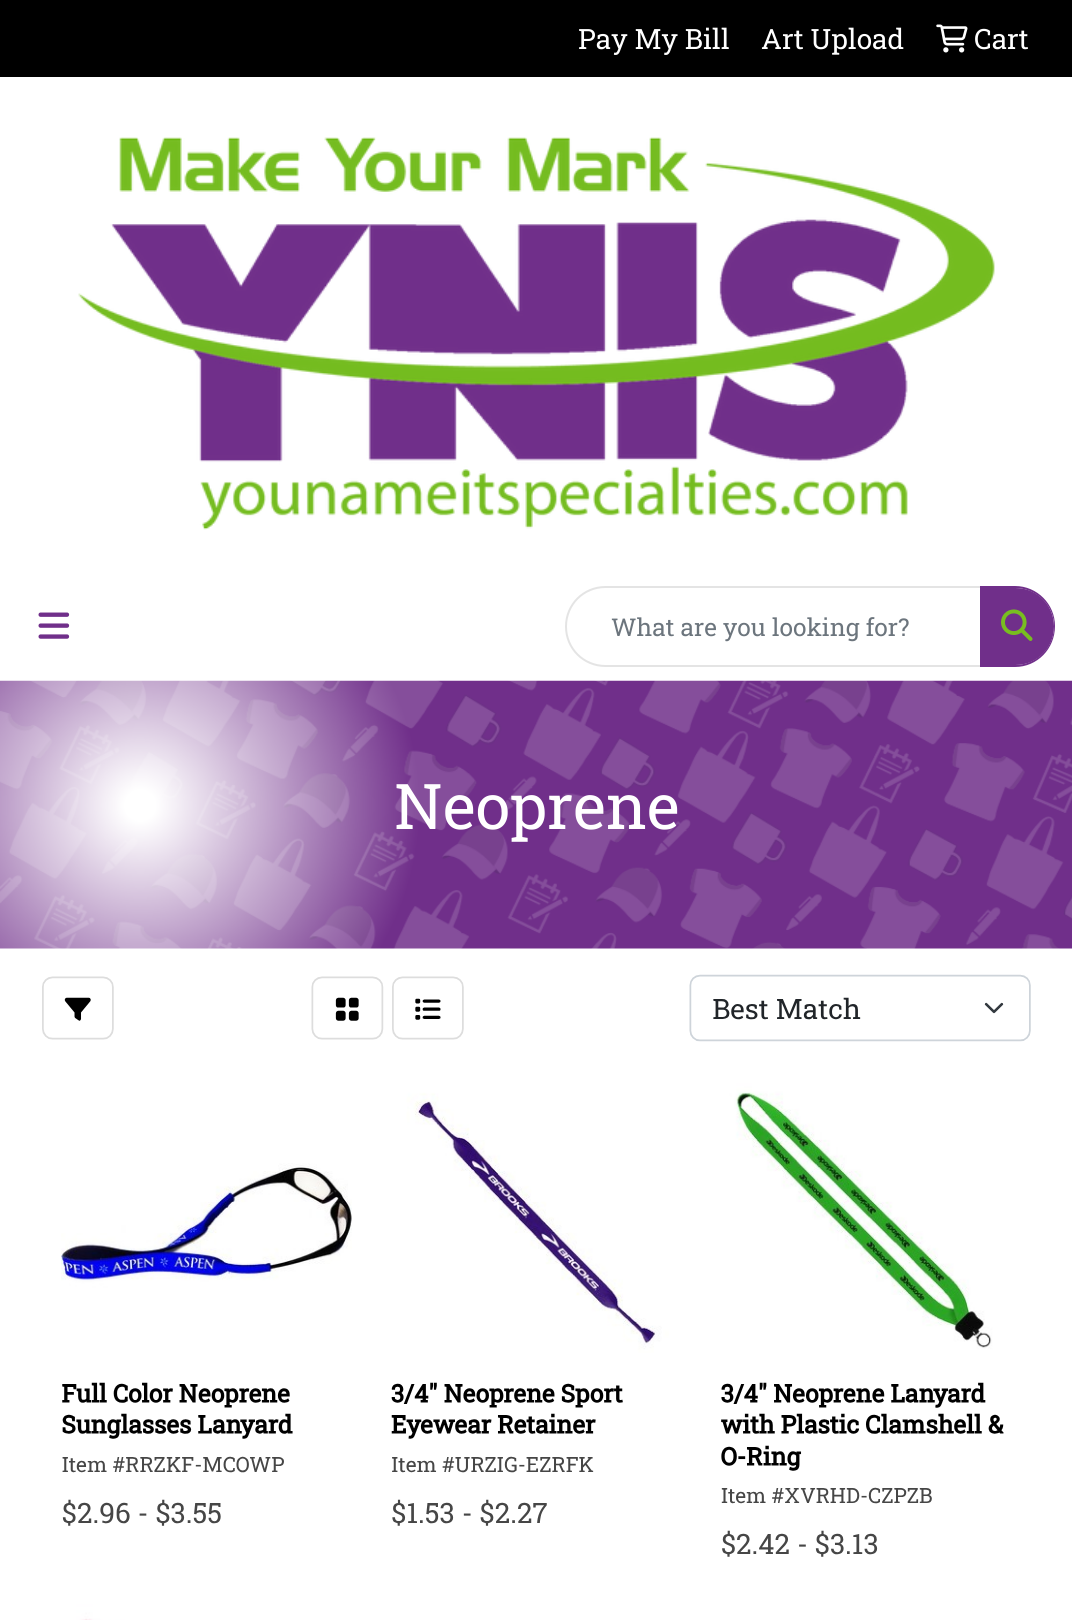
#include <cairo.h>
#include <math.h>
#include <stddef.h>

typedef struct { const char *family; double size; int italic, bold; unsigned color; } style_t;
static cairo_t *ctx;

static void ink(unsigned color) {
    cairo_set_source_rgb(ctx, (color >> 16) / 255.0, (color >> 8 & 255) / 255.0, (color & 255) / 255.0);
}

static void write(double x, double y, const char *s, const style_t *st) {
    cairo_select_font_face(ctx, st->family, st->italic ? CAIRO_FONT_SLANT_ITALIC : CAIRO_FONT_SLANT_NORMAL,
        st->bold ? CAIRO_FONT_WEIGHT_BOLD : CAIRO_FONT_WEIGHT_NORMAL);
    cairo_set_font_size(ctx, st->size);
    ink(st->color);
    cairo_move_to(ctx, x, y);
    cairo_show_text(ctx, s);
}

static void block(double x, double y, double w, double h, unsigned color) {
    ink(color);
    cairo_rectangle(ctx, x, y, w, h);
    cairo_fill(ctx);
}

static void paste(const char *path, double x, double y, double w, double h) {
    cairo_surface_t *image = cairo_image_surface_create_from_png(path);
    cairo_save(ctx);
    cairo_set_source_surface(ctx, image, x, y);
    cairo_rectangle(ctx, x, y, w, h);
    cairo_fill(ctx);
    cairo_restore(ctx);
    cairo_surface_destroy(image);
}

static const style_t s1 = {"Roboto Slab", 28, 0, 0, 0xffffff};
static const style_t s2 = {"Roboto Slab", 24.5, 0, 0, 0x6c757d};
static const style_t s3 = {"Roboto Slab", 63, 0, 0, 0xffffff};

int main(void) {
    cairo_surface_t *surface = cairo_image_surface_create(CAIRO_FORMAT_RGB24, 1072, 1620);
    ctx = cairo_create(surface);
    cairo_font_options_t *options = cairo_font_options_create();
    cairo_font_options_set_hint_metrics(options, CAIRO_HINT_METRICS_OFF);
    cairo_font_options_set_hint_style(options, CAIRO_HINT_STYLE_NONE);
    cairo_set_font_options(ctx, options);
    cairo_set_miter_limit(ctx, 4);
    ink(0xffffff);
    cairo_paint(ctx);
    block(0, 0, 1072, 77, 0x000000);
    write(578, 49, "Pay My Bill", &s1);
    write(761, 49, "Art Upload", &s1);
    paste("pic1.png", 936, 24, 32, 29);
    write(974, 49, "Cart", &s1);
    paste("pic2.png", 78, 137, 917, 393);
    paste("pic3.png", 38, 612, 32, 27);
    cairo_new_path(ctx);
    cairo_move_to(ctx, 605.5, 587);
    cairo_line_to(ctx, 981, 587);
    cairo_line_to(ctx, 981, 666);
    cairo_line_to(ctx, 605.5, 666);
    cairo_curve_to(ctx, 583.5, 666, 566, 648.5, 566, 626.5);
    cairo_curve_to(ctx, 566, 604.5, 583.5, 587, 605.5, 587);
    cairo_close_path(ctx);
    ink(0xe4e4e4);
    cairo_stroke(ctx);
    write(611, 636, "What are you looking for?", &s2);
    ink(0x702f8a);
    cairo_new_path(ctx);
    cairo_move_to(ctx, 980, 588);
    cairo_line_to(ctx, 1015.5, 588);
    cairo_curve_to(ctx, 1037, 588, 1054, 605, 1054, 626.5);
    cairo_curve_to(ctx, 1054, 648, 1037, 665, 1015.5, 665);
    cairo_line_to(ctx, 980, 665);
    cairo_close_path(ctx);
    cairo_fill(ctx);
    cairo_set_fill_rule(ctx, CAIRO_FILL_RULE_EVEN_ODD);
    cairo_new_path(ctx);
    cairo_move_to(ctx, 980, 586);
    cairo_line_to(ctx, 1015, 586);
    cairo_curve_to(ctx, 1037, 586, 1055, 604, 1055, 626);
    cairo_curve_to(ctx, 1055, 649, 1037, 667, 1015, 667);
    cairo_line_to(ctx, 980, 667);
    cairo_close_path(ctx);
    cairo_move_to(ctx, 980, 588);
    cairo_line_to(ctx, 1015, 588);
    cairo_curve_to(ctx, 1036, 588, 1054, 605, 1054, 626);
    cairo_curve_to(ctx, 1054, 648, 1036, 665, 1015, 665);
    cairo_line_to(ctx, 980, 665);
    cairo_close_path(ctx);
    cairo_fill(ctx);
    paste("pic4.png", 1001, 609, 32, 32);
    paste("pic5.png", 0, 680, 1072, 269);
    write(394, 829, "Neoprene", &s3);
    paste("pic6.png", 42, 974, 989, 646);
    cairo_surface_write_to_png(surface, "screenshot.png");
    cairo_font_options_destroy(options);
    cairo_destroy(ctx);
    cairo_surface_destroy(surface);
    return 0;
}
